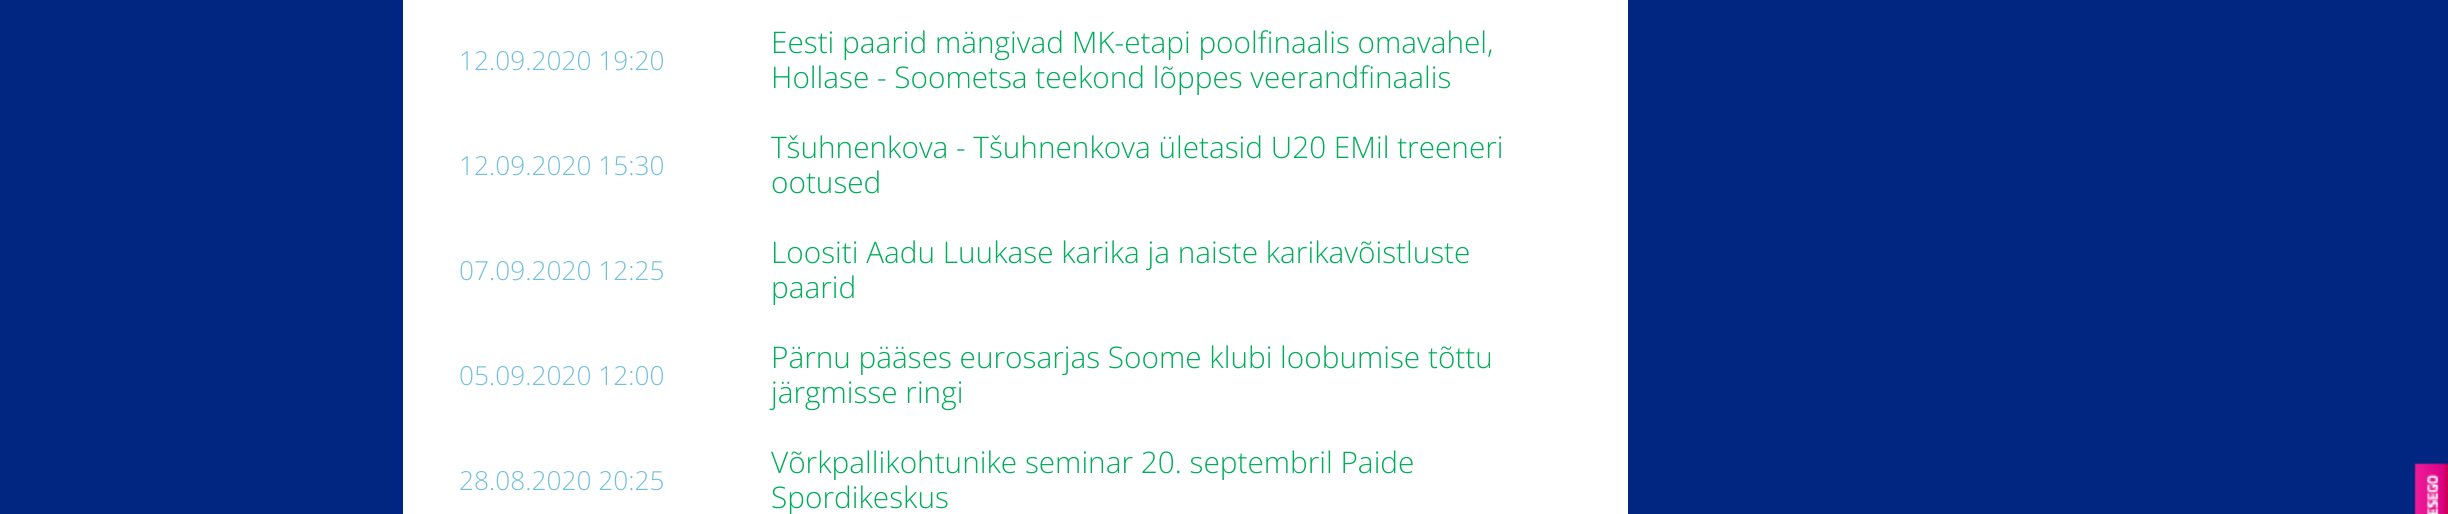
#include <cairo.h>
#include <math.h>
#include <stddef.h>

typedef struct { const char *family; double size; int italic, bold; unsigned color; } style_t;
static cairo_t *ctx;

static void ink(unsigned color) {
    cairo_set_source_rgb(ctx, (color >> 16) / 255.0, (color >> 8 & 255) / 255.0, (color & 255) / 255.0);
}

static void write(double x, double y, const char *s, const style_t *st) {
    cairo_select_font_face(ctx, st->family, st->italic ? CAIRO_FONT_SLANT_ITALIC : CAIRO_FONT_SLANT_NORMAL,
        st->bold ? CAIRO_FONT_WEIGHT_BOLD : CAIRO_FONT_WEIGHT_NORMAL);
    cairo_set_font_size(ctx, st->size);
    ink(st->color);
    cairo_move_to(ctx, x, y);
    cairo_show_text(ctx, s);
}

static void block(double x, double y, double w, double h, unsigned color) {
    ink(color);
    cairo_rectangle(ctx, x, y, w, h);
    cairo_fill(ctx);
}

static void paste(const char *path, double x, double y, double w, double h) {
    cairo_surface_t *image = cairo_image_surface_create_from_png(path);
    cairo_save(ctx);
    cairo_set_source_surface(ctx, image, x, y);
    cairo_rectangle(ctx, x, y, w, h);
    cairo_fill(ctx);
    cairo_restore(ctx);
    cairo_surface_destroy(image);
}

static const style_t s1 = {"Open Sans Light", 26.25, 0, 0, 0x72c0db};
static const style_t s2 = {"Open Sans Light", 29.75, 0, 0, 0x00ad5a};

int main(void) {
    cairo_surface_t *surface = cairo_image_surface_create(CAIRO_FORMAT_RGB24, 2448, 514);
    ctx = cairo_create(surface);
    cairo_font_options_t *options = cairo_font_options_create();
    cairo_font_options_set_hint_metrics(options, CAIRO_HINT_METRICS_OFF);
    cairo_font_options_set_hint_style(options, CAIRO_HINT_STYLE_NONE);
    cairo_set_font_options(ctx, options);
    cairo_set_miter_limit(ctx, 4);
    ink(0x002682);
    cairo_paint(ctx);
    block(403, 0, 1225, 514, 0xffffff);
    write(459, 70, "12.09.2020 19:20", &s1);
    write(771, 53, "Eesti paarid mängivad MK-etapi poolfinaalis omavahel,", &s2);
    write(771, 88, "Hollase - Soometsa teekond lõppes veerandfinaalis", &s2);
    write(459, 175, "12.09.2020 15:30", &s1);
    write(771, 158, "Tšuhnenkova - Tšuhnenkova ületasid U20 EMil treeneri", &s2);
    write(771, 193, "ootused", &s2);
    write(459, 280, "07.09.2020 12:25", &s1);
    write(771, 263, "Loositi Aadu Luukase karika ja naiste karikavõistluste", &s2);
    write(771, 298, "paarid", &s2);
    write(459, 385, "05.09.2020 12:00", &s1);
    write(771, 368, "Pärnu pääses eurosarjas Soome klubi loobumise tõttu", &s2);
    write(771, 403, "järgmisse ringi", &s2);
    write(459, 490, "28.08.2020 20:25", &s1);
    write(771, 473, "Võrkpallikohtunike seminar 20. septembril Paide", &s2);
    write(771, 508, "Spordikeskus", &s2);
    paste("pic1.png", 2413, 463, 35, 51);
    cairo_surface_write_to_png(surface, "screenshot.png");
    cairo_font_options_destroy(options);
    cairo_destroy(ctx);
    cairo_surface_destroy(surface);
    return 0;
}
